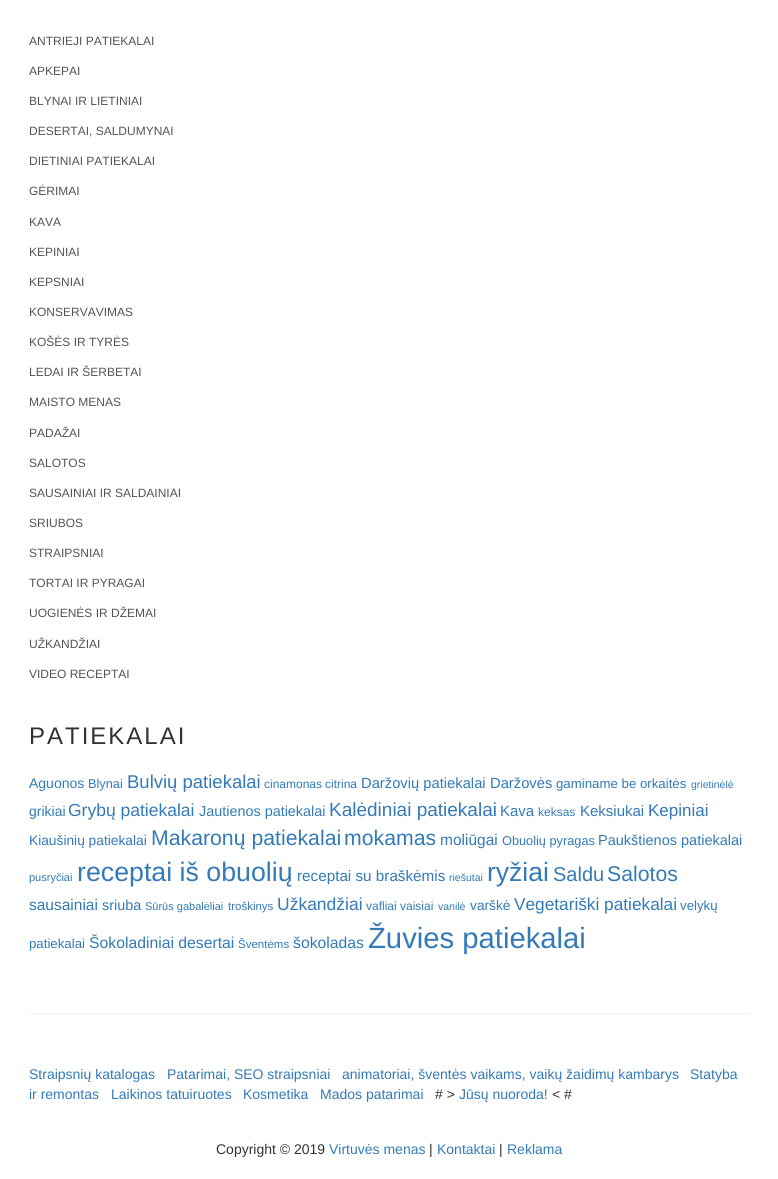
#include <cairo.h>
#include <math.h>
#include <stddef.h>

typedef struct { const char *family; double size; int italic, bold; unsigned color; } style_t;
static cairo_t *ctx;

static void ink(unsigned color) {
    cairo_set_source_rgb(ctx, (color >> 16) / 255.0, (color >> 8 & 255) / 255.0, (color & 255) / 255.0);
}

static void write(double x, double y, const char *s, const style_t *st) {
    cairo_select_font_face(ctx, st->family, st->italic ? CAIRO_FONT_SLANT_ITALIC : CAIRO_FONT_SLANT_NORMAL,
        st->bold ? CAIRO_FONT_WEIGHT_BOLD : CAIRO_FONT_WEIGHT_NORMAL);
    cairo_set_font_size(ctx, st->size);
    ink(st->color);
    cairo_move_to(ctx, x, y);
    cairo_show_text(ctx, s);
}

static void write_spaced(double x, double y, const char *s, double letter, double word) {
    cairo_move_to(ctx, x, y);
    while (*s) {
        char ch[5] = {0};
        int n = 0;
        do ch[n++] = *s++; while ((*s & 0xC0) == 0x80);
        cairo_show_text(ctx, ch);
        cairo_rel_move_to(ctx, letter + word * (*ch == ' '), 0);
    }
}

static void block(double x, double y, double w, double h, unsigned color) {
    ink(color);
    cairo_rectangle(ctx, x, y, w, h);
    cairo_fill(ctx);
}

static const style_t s1 = {"Liberation Sans", 12, 0, 0, 0x545454};
static const style_t s2 = {"Liberation Sans", 14, 0, 0, 0x337ab7};
static const style_t s3 = {"Liberation Sans", 12.75, 0, 0, 0x337ab7};
static const style_t s4 = {"Liberation Sans", 18.5, 0, 0, 0x337ab7};
static const style_t s5 = {"Liberation Sans", 12, 0, 0, 0x337ab7};
static const style_t s6 = {"Liberation Sans", 14.75, 0, 0, 0x337ab7};
static const style_t s7 = {"Liberation Sans", 13.25, 0, 0, 0x337ab7};
static const style_t s8 = {"Liberation Sans", 10.5, 0, 0, 0x337ab7};
static const style_t s9 = {"Liberation Sans", 17.5, 0, 0, 0x337ab7};
static const style_t s10 = {"Liberation Sans", 14.4, 0, 0, 0x337ab7};
static const style_t s11 = {"Liberation Sans", 19, 0, 0, 0x337ab7};
static const style_t s12 = {"Liberation Sans", 15, 0, 0, 0x337ab7};
static const style_t s13 = {"Liberation Sans", 17, 0, 0, 0x337ab7};
static const style_t s14 = {"Liberation Sans", 13.75, 0, 0, 0x337ab7};
static const style_t s15 = {"Liberation Sans", 21.25, 0, 0, 0x337ab7};
static const style_t s16 = {"Liberation Sans", 15.5, 0, 0, 0x337ab7};
static const style_t s17 = {"Liberation Sans", 14.5, 0, 0, 0x337ab7};
static const style_t s18 = {"Liberation Sans", 11, 0, 0, 0x337ab7};
static const style_t s19 = {"Liberation Sans", 26.75, 0, 0, 0x337ab7};
static const style_t s20 = {"Liberation Sans", 15.25, 0, 0, 0x337ab7};
static const style_t s21 = {"Liberation Sans", 26.5, 0, 0, 0x337ab7};
static const style_t s22 = {"Liberation Sans", 20, 0, 0, 0x337ab7};
static const style_t s23 = {"Liberation Sans", 11.5, 0, 0, 0x337ab7};
static const style_t s24 = {"Liberation Sans", 17.25, 0, 0, 0x337ab7};
static const style_t s25 = {"Liberation Sans", 15.75, 0, 0, 0x337ab7};
static const style_t s26 = {"Liberation Sans", 29.25, 0, 0, 0x337ab7};
static const style_t s27 = {"Liberation Sans", 14, 0, 0, 0x333333};

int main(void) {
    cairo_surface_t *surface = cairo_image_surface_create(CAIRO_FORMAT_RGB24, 778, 1179);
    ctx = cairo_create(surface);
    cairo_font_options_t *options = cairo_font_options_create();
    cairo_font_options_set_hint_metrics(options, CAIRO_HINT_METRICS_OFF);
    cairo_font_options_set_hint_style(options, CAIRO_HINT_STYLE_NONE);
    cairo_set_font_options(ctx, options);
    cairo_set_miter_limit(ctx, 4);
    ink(0xffffff);
    cairo_paint(ctx);
    write(29, 45, "ANTRIEJI PATIEKALAI", &s1);
    write(29, 75, "APKEPAI", &s1);
    write(29, 105, "BLYNAI IR LIETINIAI", &s1);
    write(29, 135, "DESERTAI, SALDUMYNAI", &s1);
    write(29, 165, "DIETINIAI PATIEKALAI", &s1);
    write(29, 195, "GĖRIMAI", &s1);
    write(29, 226, "KAVA", &s1);
    write(29, 256, "KEPINIAI", &s1);
    write(29, 286, "KEPSNIAI", &s1);
    write(29, 316, "KONSERVAVIMAS", &s1);
    write(29, 346, "KOŠĖS IR TYRĖS", &s1);
    write(29, 376, "LEDAI IR ŠERBETAI", &s1);
    write(29, 406, "MAISTO MENAS", &s1);
    write(29, 437, "PADAŽAI", &s1);
    write(29, 467, "SALOTOS", &s1);
    write(29, 497, "SAUSAINIAI IR SALDAINIAI", &s1);
    write(29, 527, "SRIUBOS", &s1);
    write(29, 557, "STRAIPSNIAI", &s1);
    write(29, 587, "TORTAI IR PYRAGAI", &s1);
    write(29, 617, "UOGIENĖS IR DŽEMAI", &s1);
    write(29, 648, "UŽKANDŽIAI", &s1);
    write(29, 678, "VIDEO RECEPTAI", &s1);
    cairo_set_font_size(ctx, 24);
    ink(0x333333);
    write_spaced(29, 744, "PATIEKALAI", 2, 0);
    write(29, 788, "Aguonos", &s2);
    write(88, 788, "Blynai", &s3);
    write(127, 788, "Bulvių patiekalai", &s4);
    write(264, 788, "cinamonas", &s5);
    write(325, 788, "citrina", &s5);
    write(361, 788, "Daržovių patiekalai", &s6);
    write(490, 788, "Daržovės", &s6);
    write(556, 788, "gaminame be orkaitės", &s7);
    write(691, 788, "grietinėlė", &s8);
    write(29, 816, "grikiai", &s2);
    write(68, 816, "Grybų patiekalai", &s9);
    write(199, 816, "Jautienos patiekalai", &s10);
    write(329, 816, "Kalėdiniai patiekalai", &s11);
    write(500, 816, "Kava", &s12);
    write(538, 816, "keksas", &s5);
    write(580, 816, "Keksiukai", &s12);
    write(648, 816, "Kepiniai", &s13);
    write(29, 845, "Kiaušinių patiekalai", &s14);
    write(151, 845, "Makaronų patiekalai", &s15);
    write(344, 845, "mokamas", &s15);
    write(440, 845, "moliūgai", &s16);
    write(502, 845, "Obuolių pyragas", &s3);
    write(598, 845, "Paukštienos patiekalai", &s17);
    write(29, 881, "pusryčiai", &s18);
    write(77, 881, "receptai iš obuolių", &s19);
    write(297, 881, "receptai su braškėmis", &s20);
    write(449, 881, "riešutai", &s8);
    write(487, 881, "ryžiai", &s21);
    write(553, 881, "Saldu", &s22);
    write(607, 881, "Salotos", &s15);
    write(29, 910, "sausainiai", &s16);
    write(102, 910, "sriuba", &s10);
    write(145, 910, "Sūrūs gabalėliai", &s18);
    write(228, 910, "troškinys", &s23);
    write(277, 910, "Užkandžiai", &s9);
    write(366, 910, "vafliai", &s5);
    write(400, 910, "vaisiai", &s5);
    write(438, 910, "vanilė", &s8);
    write(470, 910, "varškė", &s14);
    write(514, 910, "Vegetariški patiekalai", &s24);
    write(680, 910, "velykų", &s7);
    write(29, 948, "patiekalai", &s7);
    write(89, 948, "Šokoladiniai desertai", &s25);
    write(238, 948, "Šventėms", &s23);
    write(293, 948, "šokoladas", &s25);
    write(368, 948, "Žuvies patiekalai", &s26);
    block(29, 1013, 720, 1, 0xeeeeee);
    write(29, 1079, "Straipsnių katalogas", &s2);
    write(167, 1079, "Patarimai, SEO straipsniai", &s2);
    write(342, 1079, "animatoriai, šventės vaikams, vaikų žaidimų kambarys", &s2);
    write(690, 1079, "Statyba", &s2);
    write(29, 1099, "ir remontas", &s2);
    write(111, 1099, "Laikinos tatuiruotes", &s2);
    write(243, 1099, "Kosmetika", &s2);
    write(320, 1099, "Mados patarimai", &s2);
    write(435, 1099, "# >", &s27);
    write(459, 1099, "Jūsų nuoroda!", &s2);
    write(552, 1099, "< #", &s27);
    write(216, 1154, "Copyright © 2019", &s27);
    write(329, 1154, "Virtuvės menas", &s2);
    write(429, 1154, "|", &s27);
    write(437, 1154, "Kontaktai", &s2);
    write(499, 1154, "|", &s27);
    write(507, 1154, "Reklama", &s2);
    cairo_surface_write_to_png(surface, "screenshot.png");
    cairo_font_options_destroy(options);
    cairo_destroy(ctx);
    cairo_surface_destroy(surface);
    return 0;
}
